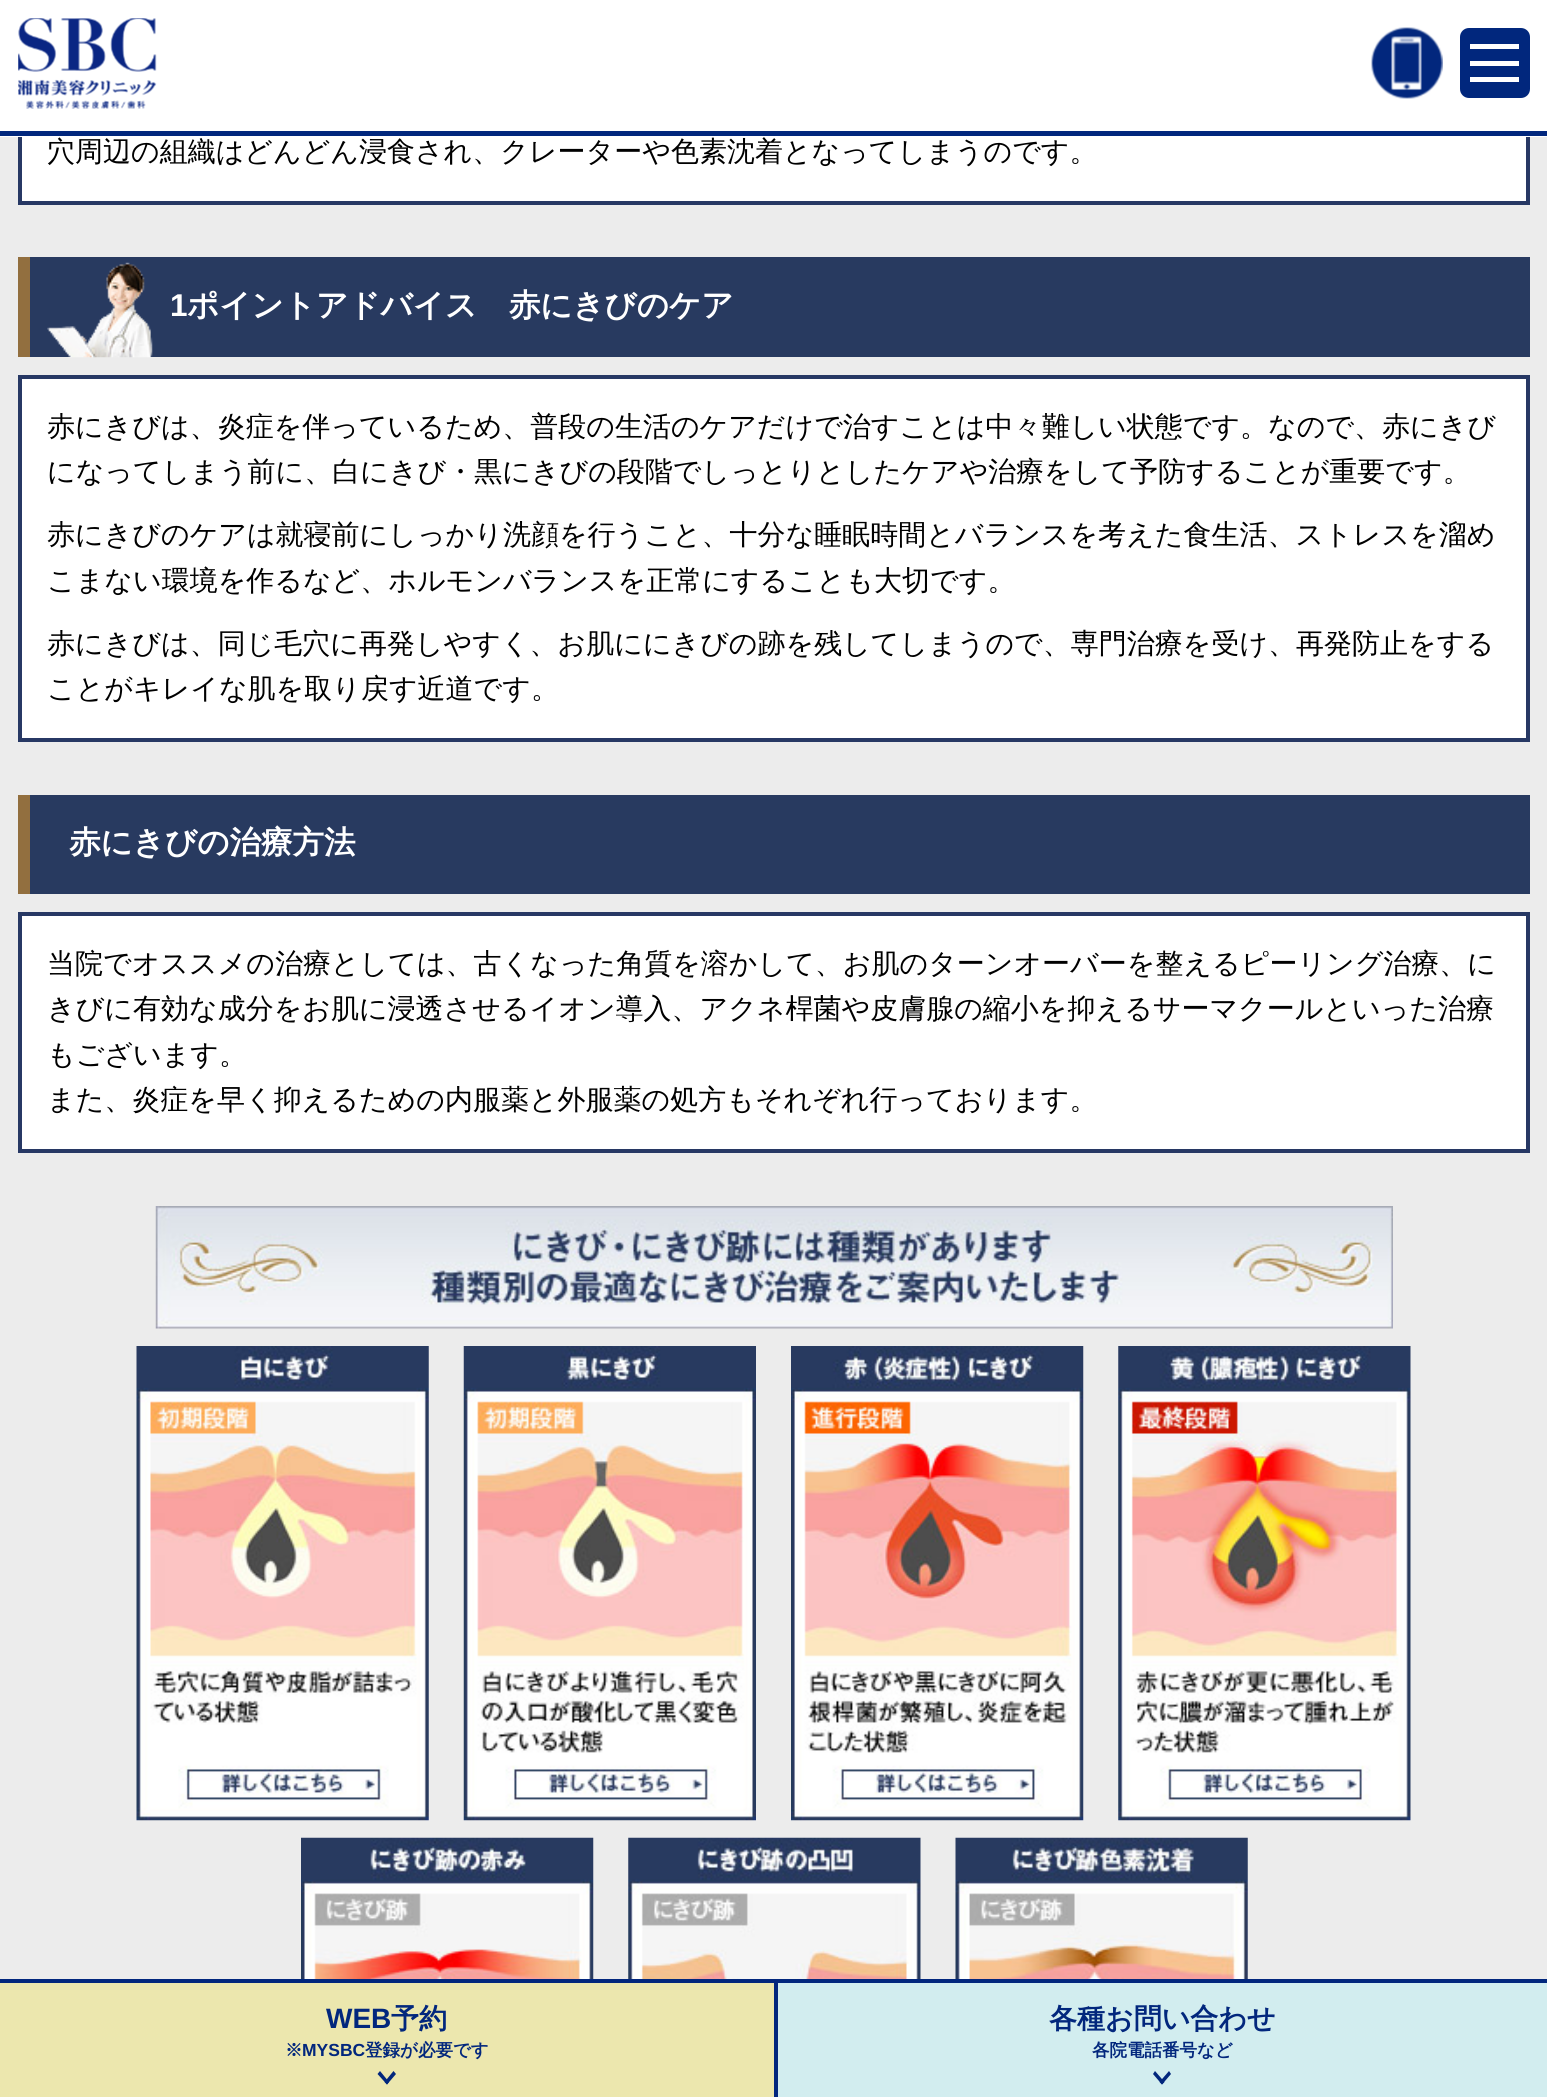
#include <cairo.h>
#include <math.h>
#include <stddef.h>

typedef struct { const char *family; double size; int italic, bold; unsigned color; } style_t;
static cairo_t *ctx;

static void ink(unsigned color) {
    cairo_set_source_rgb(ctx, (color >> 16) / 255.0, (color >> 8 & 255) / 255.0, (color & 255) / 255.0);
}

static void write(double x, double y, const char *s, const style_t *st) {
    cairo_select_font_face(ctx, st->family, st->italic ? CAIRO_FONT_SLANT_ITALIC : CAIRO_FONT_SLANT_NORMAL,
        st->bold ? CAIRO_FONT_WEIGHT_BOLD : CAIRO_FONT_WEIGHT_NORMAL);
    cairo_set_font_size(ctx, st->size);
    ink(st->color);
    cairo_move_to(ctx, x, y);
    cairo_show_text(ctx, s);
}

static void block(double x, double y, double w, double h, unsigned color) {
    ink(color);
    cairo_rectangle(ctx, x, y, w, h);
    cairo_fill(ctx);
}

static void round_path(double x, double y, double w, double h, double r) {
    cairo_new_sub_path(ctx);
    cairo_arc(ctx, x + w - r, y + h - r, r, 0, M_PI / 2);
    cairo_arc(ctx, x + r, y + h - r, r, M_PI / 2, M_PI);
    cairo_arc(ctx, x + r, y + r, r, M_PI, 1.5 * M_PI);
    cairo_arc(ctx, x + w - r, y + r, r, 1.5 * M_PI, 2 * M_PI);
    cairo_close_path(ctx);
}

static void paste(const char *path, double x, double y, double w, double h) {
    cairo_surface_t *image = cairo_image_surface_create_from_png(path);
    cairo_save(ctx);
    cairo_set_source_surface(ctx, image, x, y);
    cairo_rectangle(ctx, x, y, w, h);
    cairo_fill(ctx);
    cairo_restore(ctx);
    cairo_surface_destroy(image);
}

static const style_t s1 = {"WenQuanYi Zen Hei Medium", 28, 0, 0, 0x000000};
static const style_t s2 = {"Liberation Sans", 31.5, 0, 1, 0xffffff};
static const style_t s3 = {"WenQuanYi Zen Hei", 31.5, 0, 1, 0xffffff};
static const style_t s4 = {"Liberation Sans", 28, 0, 1, 0x02277d};
static const style_t s5 = {"WenQuanYi Zen Hei", 28, 0, 1, 0x02277d};
static const style_t s6 = {"WenQuanYi Zen Hei", 17.5, 0, 1, 0x02277d};
static const style_t s7 = {"Liberation Sans", 17.5, 0, 1, 0x02277d};

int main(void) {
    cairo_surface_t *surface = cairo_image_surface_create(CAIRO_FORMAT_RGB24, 1547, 2097);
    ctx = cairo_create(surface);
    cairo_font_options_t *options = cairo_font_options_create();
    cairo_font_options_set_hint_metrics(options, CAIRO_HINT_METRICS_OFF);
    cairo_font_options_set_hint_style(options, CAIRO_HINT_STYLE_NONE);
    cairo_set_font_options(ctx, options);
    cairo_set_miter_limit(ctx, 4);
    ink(0xececec);
    cairo_paint(ctx);
    block(22, 137, 1504, 64, 0xffffff);
    cairo_rectangle(ctx, 20, -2, 1508, 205);
    ink(0x273864);
    cairo_set_line_width(ctx, 4);
    cairo_stroke(ctx);
    write(47, 161, "穴周辺の組織はどんどん浸食され、クレーターや色素沈着となってしまうのです。", &s1);
    block(30, 257, 1500, 100, 0x283a60);
    block(18, 257, 12, 100, 0x926f3f);
    paste("pic1.png", 47, 262, 106, 96);
    write(170, 316, "1", &s2);
    write(187, 316, "ポイントアドバイス　赤にきびのケア", &s3);
    cairo_rectangle(ctx, 20, 377, 1508, 363);
    cairo_fill_preserve(ctx);
    ink(0x273864);
    cairo_stroke(ctx);
    write(47, 436, "赤にきびは、炎症を伴っているため、普段の生活のケアだけで治すことは中々難しい状態です。なので、赤にきび", &s1);
    write(47, 481, "になってしまう前に、白にきび・黒にきびの段階でしっとりとしたケアや治療をして予防することが重要です。", &s1);
    write(47, 544, "赤にきびのケアは就寝前にしっかり洗顔を行うこと、十分な睡眠時間とバランスを考えた食生活、ストレスを溜め", &s1);
    write(47, 590, "こまない環境を作るなど、ホルモンバランスを正常にすることも大切です。", &s1);
    write(47, 653, "赤にきびは、同じ毛穴に再発しやすく、お肌ににきびの跡を残してしまうので、専門治療を受け、再発防止をする", &s1);
    write(47, 698, "ことがキレイな肌を取り戻す近道です。", &s1);
    block(30, 795, 1500, 99, 0x283a60);
    block(18, 795, 12, 99, 0x926f3f);
    write(69, 853, "赤にきびの治療方法", &s3);
    cairo_rectangle(ctx, 20, 914, 1508, 237);
    cairo_fill_preserve(ctx);
    ink(0x273864);
    cairo_stroke(ctx);
    write(47, 973, "当院でオススメの治療としては、古くなった角質を溶かして、お肌のターンオーバーを整えるピーリング治療、に", &s1);
    write(47, 1018, "きびに有効な成分をお肌に浸透させるイオン導入、アクネ桿菌や皮膚腺の縮小を抑えるサーマクールといった治療", &s1);
    write(47, 1064, "もございます。", &s1);
    write(47, 1109, "また、炎症を早く抑えるための内服薬と外服薬の処方もそれぞれ行っております。", &s1);
    paste("pic2.png", 155, 1206, 1238, 123);
    paste("pic3.png", 136, 1346, 293, 475);
    paste("pic4.png", 463, 1346, 293, 475);
    paste("pic5.png", 791, 1346, 293, 475);
    paste("pic6.png", 1118, 1346, 293, 475);
    paste("pic7.png", 301, 1837, 293, 142);
    paste("pic8.png", 628, 1837, 293, 142);
    paste("pic9.png", 955, 1837, 293, 142);
    block(0, 0, 1547, 137, 0xffffff);
    block(0, 131, 1547, 5, 0x01277d);
    paste("pic10.png", 18, 18, 139, 91);
    paste("pic11.png", 1371, 27, 72, 72);
    round_path(1460, 28, 70, 70, 9);
    cairo_fill(ctx);
    block(1470, 44, 49, 5, 0xffffff);
    block(1470, 61, 49, 5, 0xffffff);
    block(1470, 77, 49, 5, 0xffffff);
    block(0, 1983, 774, 114, 0xece7ae);
    block(0, 1979, 1547, 4, 0x02277d);
    write(326, 2028, "WEB", &s4);
    write(391, 2028, "予約", &s5);
    write(285, 2056, "※", &s6);
    write(302, 2056, "MYSBC", &s7);
    write(365, 2056, "登録が必要です", &s6);
    cairo_new_path(ctx);
    cairo_move_to(ctx, 393.5, 2071);
    cairo_line_to(ctx, 396, 2074);
    cairo_line_to(ctx, 387, 2084.5);
    cairo_line_to(ctx, 384.5, 2082);
    cairo_close_path(ctx);
    cairo_fill(ctx);
    cairo_new_path(ctx);
    cairo_move_to(ctx, 380, 2071);
    cairo_line_to(ctx, 389, 2082);
    cairo_line_to(ctx, 387, 2084.5);
    cairo_line_to(ctx, 377.5, 2074);
    cairo_close_path(ctx);
    cairo_fill(ctx);
    block(778, 1983, 769, 114, 0xd2edef);
    block(774, 1979, 4, 118, 0x02277d);
    write(1049, 2028, "各種お問い合わせ", &s5);
    write(1092, 2056, "各院電話番号など", &s6);
    cairo_new_path(ctx);
    cairo_move_to(ctx, 1169, 2071);
    cairo_line_to(ctx, 1171, 2074);
    cairo_line_to(ctx, 1162, 2084.5);
    cairo_line_to(ctx, 1159.5, 2082);
    cairo_close_path(ctx);
    cairo_fill(ctx);
    cairo_new_path(ctx);
    cairo_move_to(ctx, 1155, 2071);
    cairo_line_to(ctx, 1164.5, 2082);
    cairo_line_to(ctx, 1162, 2084.5);
    cairo_line_to(ctx, 1153, 2074);
    cairo_close_path(ctx);
    cairo_fill(ctx);
    cairo_surface_write_to_png(surface, "screenshot.png");
    cairo_font_options_destroy(options);
    cairo_destroy(ctx);
    cairo_surface_destroy(surface);
    return 0;
}
